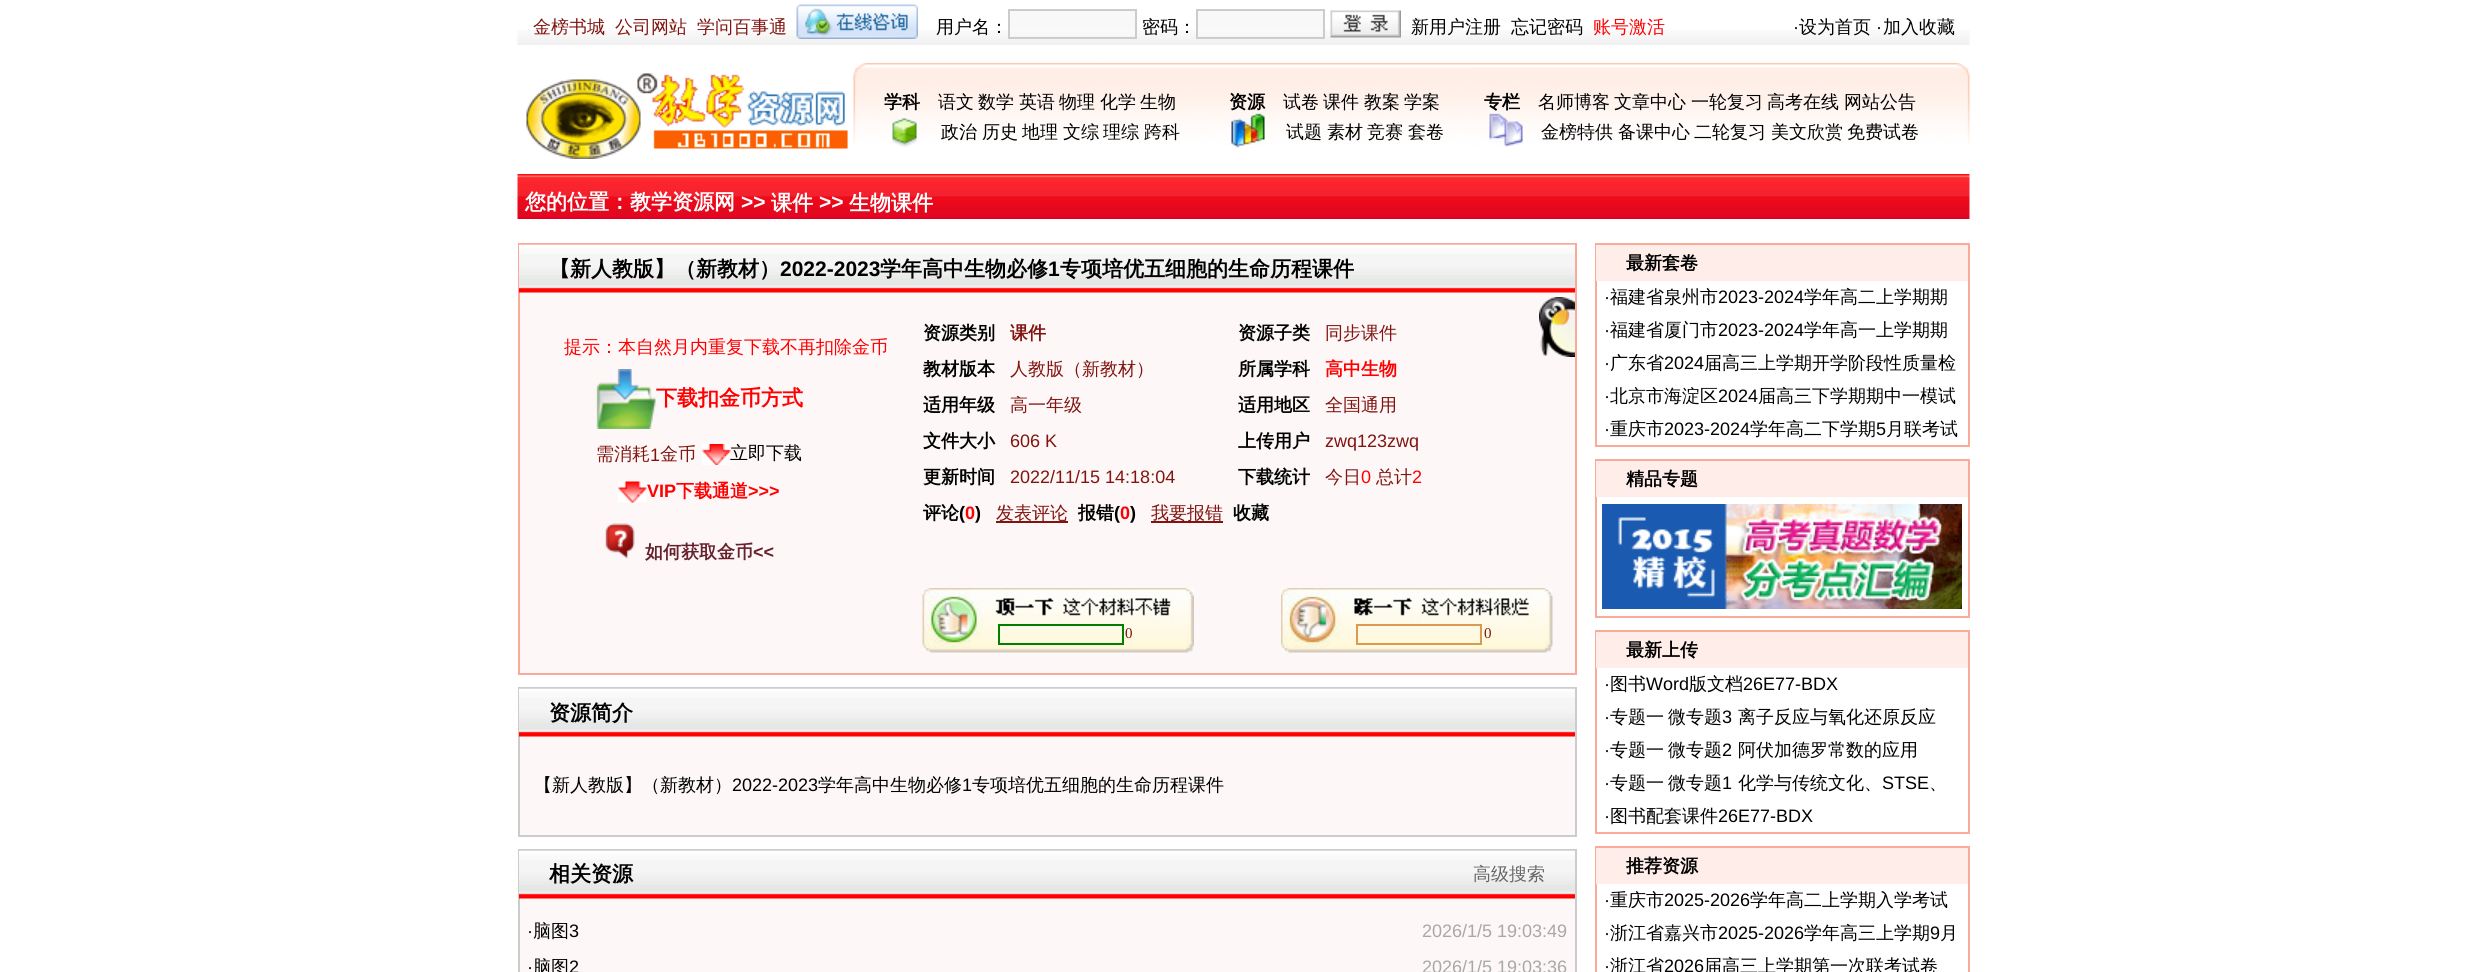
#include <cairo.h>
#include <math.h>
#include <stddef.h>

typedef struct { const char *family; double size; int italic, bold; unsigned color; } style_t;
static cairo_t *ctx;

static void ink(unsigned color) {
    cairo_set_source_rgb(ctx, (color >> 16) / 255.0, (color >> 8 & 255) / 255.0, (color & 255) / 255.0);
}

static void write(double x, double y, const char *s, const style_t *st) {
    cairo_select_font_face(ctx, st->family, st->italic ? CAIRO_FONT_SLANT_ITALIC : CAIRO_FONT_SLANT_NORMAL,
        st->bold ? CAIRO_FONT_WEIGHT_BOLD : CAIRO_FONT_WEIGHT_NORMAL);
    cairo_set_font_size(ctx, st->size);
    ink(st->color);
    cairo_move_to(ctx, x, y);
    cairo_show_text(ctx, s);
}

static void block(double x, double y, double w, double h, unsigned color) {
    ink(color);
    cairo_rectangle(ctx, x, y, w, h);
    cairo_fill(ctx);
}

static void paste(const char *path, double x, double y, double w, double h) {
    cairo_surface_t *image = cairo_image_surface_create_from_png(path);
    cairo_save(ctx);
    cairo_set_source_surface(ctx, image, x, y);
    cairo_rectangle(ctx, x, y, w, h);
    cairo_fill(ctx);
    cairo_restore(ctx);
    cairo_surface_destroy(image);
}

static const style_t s1 = {"WenQuanYi Zen Hei Medium", 18, 0, 0, 0x81140f};
static const style_t s2 = {"WenQuanYi Zen Hei Medium", 18, 0, 0, 0x000000};
static const style_t s3 = {"WenQuanYi Zen Hei Medium", 18, 0, 0, 0xff0000};
static const style_t s4 = {"Liberation Sans", 18, 0, 0, 0x000000};
static const style_t s5 = {"WenQuanYi Zen Hei", 18, 0, 1, 0x000000};
static const style_t s6 = {"WenQuanYi Zen Hei", 21, 0, 1, 0xffffff};
static const style_t s7 = {"Liberation Sans", 21, 0, 1, 0xffffff};
static const style_t s8 = {"WenQuanYi Zen Hei", 21, 0, 1, 0x000000};
static const style_t s9 = {"Liberation Sans", 21, 0, 1, 0x000000};
static const style_t s10 = {"WenQuanYi Zen Hei", 21, 0, 1, 0xff0000};
static const style_t s11 = {"Liberation Sans", 18, 0, 0, 0x81140f};
static const style_t s12 = {"Liberation Sans", 18, 0, 1, 0xff0000};
static const style_t s13 = {"WenQuanYi Zen Hei", 18, 0, 1, 0xff0000};
static const style_t s14 = {"WenQuanYi Zen Hei", 18, 0, 1, 0x65212c};
static const style_t s15 = {"Liberation Sans", 18, 0, 1, 0x65212c};
static const style_t s16 = {"WenQuanYi Zen Hei", 18, 0, 1, 0x81140f};
static const style_t s17 = {"Liberation Sans", 18, 0, 0, 0xff0000};
static const style_t s18 = {"Liberation Sans", 18, 0, 1, 0x000000};
static const style_t s19 = {"Liberation Serif", 15, 0, 0, 0x81140f};
static const style_t s20 = {"WenQuanYi Zen Hei Medium", 18, 0, 0, 0x666666};
static const style_t s21 = {"Liberation Sans", 18, 0, 0, 0xa8a8a8};

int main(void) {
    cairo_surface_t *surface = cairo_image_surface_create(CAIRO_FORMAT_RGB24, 2486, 972);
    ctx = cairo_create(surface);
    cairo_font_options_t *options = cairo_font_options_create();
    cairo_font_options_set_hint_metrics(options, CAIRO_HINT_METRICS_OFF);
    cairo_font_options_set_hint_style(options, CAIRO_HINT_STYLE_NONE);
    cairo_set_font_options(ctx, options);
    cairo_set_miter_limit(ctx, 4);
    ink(0xffffff);
    cairo_paint(ctx);
    paste("pic1.png", 517, 30, 1453, 15);
    write(533, 33, "金榜书城", &s1);
    write(615, 33, "公司网站", &s1);
    write(697, 33, "学问百事通", &s1);
    paste("pic2.png", 796, 4, 122, 35);
    write(936, 33, "用户名：", &s2);
    block(1010, 11, 125, 19, 0xf8f8f8);
    cairo_rectangle(ctx, 1009, 10, 127, 28);
    ink(0xcccccc);
    cairo_stroke(ctx);
    write(1142, 33, "密码：", &s2);
    block(1198, 11, 125, 19, 0xf8f8f8);
    cairo_rectangle(ctx, 1197, 10, 127, 28);
    ink(0xcccccc);
    cairo_stroke(ctx);
    paste("pic3.png", 1330, 10, 71, 28);
    write(1411, 33, "新用户注册", &s2);
    write(1511, 33, "忘记密码", &s2);
    write(1593, 33, "账号激活", &s3);
    write(1793, 33, "·", &s4);
    write(1799, 33, "设为首页", &s2);
    write(1876, 33, "·", &s4);
    write(1883, 33, "加入收藏", &s2);
    paste("pic4.png", 526, 73, 322, 86);
    paste("pic5.png", 853, 63, 1117, 85);
    write(884, 108, "学科", &s5);
    write(938, 108, "语文", &s2);
    write(978, 108, "数学", &s2);
    write(1019, 108, "英语", &s2);
    write(1059, 108, "物理", &s2);
    write(1100, 108, "化学", &s2);
    write(1140, 108, "生物", &s2);
    write(941, 138, "政治", &s2);
    write(982, 138, "历史", &s2);
    write(1022, 138, "地理", &s2);
    write(1063, 138, "文综", &s2);
    write(1103, 138, "理综", &s2);
    write(1144, 138, "跨科", &s2);
    write(1229, 108, "资源", &s5);
    write(1283, 108, "试卷", &s2);
    write(1323, 108, "课件", &s2);
    write(1364, 108, "教案", &s2);
    write(1404, 108, "学案", &s2);
    write(1286, 138, "试题", &s2);
    write(1327, 138, "素材", &s2);
    write(1367, 138, "竞赛", &s2);
    write(1408, 138, "套卷", &s2);
    write(1484, 108, "专栏", &s5);
    write(1538, 108, "名师博客", &s2);
    write(1614, 108, "文章中心", &s2);
    write(1691, 108, "一轮复习", &s2);
    write(1767, 108, "高考在线", &s2);
    write(1844, 108, "网站公告", &s2);
    write(1541, 138, "金榜特供", &s2);
    write(1618, 138, "备课中心", &s2);
    write(1694, 138, "二轮复习", &s2);
    write(1771, 138, "美文欣赏", &s2);
    write(1847, 138, "免费试卷", &s2);
    paste("pic6.png", 517, 174, 1453, 45);
    write(525, 209, "您的位置：教学资源网", &s6);
    write(741, 209, ">>", &s7);
    write(771, 210, "课件", &s6);
    write(819, 209, ">>", &s7);
    write(849, 210, "生物课件", &s6);
    block(520, 292, 1055, 381, 0xfdf7f7);
    cairo_rectangle(ctx, 519, 244, 1057, 430);
    ink(0xf9aa99);
    cairo_stroke(ctx);
    paste("pic7.png", 519, 244, 1056, 49);
    write(549, 276, "【新人教版】（新教材）", &s8);
    write(780, 276, "2022-2023", &s9);
    write(880, 276, "学年高中生物必修", &s8);
    write(1048, 276, "1", &s9);
    write(1060, 276, "专项培优五细胞的生命历程课件", &s8);
    write(564, 353, "提示：本自然月内重复下载不再扣除金币", &s3);
    paste("pic8.png", 596, 369, 60, 60);
    write(656, 405, "下载扣金币方式", &s10);
    write(596, 460, "需消耗", &s1);
    write(650, 461, "1", &s11);
    write(660, 460, "金币", &s1);
    paste("pic9.png", 702, 444, 29, 21);
    write(730, 459, "立即下载", &s2);
    paste("pic10.png", 618, 481, 29, 22);
    write(647, 497, "VIP", &s12);
    write(676, 497, "下载通道", &s13);
    write(748, 497, ">>>", &s12);
    paste("pic11.png", 605, 523, 30, 36);
    write(645, 558, "如何获取金币", &s14);
    write(753, 558, "<<", &s15);
    write(923, 339, "资源类别", &s5);
    write(1010, 339, "课件", &s16);
    write(1238, 339, "资源子类", &s5);
    write(1325, 339, "同步课件", &s1);
    write(923, 375, "教材版本", &s5);
    write(1010, 375, "人教版（新教材）", &s1);
    write(1238, 375, "所属学科", &s5);
    write(1325, 375, "高中生物", &s13);
    write(923, 411, "适用年级", &s5);
    write(1010, 411, "高一年级", &s1);
    write(1238, 411, "适用地区", &s5);
    write(1325, 411, "全国通用", &s1);
    write(923, 447, "文件大小", &s5);
    write(1010, 447, "606 K", &s11);
    write(1238, 447, "上传用户", &s5);
    write(1325, 447, "zwq123zwq", &s11);
    write(923, 483, "更新时间", &s5);
    write(1010, 483, "2022/11/15 14:18:04", &s11);
    write(1238, 483, "下载统计", &s5);
    write(1325, 483, "今日", &s1);
    write(1361, 483, "0", &s17);
    write(1376, 483, "总计", &s1);
    write(1412, 483, "2", &s17);
    write(923, 519, "评论", &s5);
    write(959, 519, "(", &s18);
    write(965, 519, "0", &s12);
    write(975, 519, ")", &s18);
    block(996, 521, 72, 2, 0x81140f);
    write(996, 519, "发表评论", &s1);
    write(1078, 519, "报错", &s5);
    write(1114, 519, "(", &s18);
    write(1120, 519, "0", &s12);
    write(1130, 519, ")", &s18);
    block(1151, 521, 72, 2, 0x81140f);
    write(1151, 519, "我要报错", &s1);
    write(1233, 519, "收藏", &s5);
    paste("pic12.png", 922, 588, 272, 65);
    cairo_rectangle(ctx, 999, 625, 124, 19);
    ink(0x008000);
    cairo_stroke(ctx);
    write(1125, 638, "0", &s19);
    paste("pic13.png", 1281, 588, 272, 65);
    cairo_rectangle(ctx, 1357, 625, 124, 19);
    ink(0xda9a50);
    cairo_stroke(ctx);
    write(1484, 638, "0", &s19);
    paste("pic14.png", 1539, 297, 36, 60);
    block(520, 736, 1055, 99, 0xfdf7f7);
    cairo_rectangle(ctx, 519, 688, 1057, 148);
    ink(0xcccccc);
    cairo_stroke(ctx);
    paste("pic15.png", 519, 688, 1056, 49);
    write(549, 720, "资源简介", &s8);
    write(534, 791, "【新人教版】（新教材）", &s2);
    write(732, 791, "2022-2023", &s4);
    write(818, 791, "学年高中生物必修", &s2);
    write(962, 791, "1", &s4);
    write(972, 791, "专项培优五细胞的生命历程课件", &s2);
    block(520, 898, 1055, 74, 0xfdf7f7);
    cairo_rectangle(ctx, 519, 850, 1057, 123);
    ink(0xcccccc);
    cairo_stroke(ctx);
    paste("pic15.png", 519, 850, 1056, 49);
    write(549, 881, "相关资源", &s8);
    write(1473, 880, "高级搜索", &s20);
    write(527, 937, "·", &s4);
    write(533, 937, "脑图", &s2);
    write(569, 937, "3", &s4);
    write(1422, 937, "2026/1/5 19:03:49", &s21);
    write(527, 973, "·", &s4);
    write(533, 973, "脑图", &s2);
    write(569, 973, "2", &s4);
    write(1422, 973, "2026/1/5 19:03:36", &s21);
    cairo_rectangle(ctx, 1596, 244, 373, 202);
    ink(0xf9aa99);
    cairo_stroke(ctx);
    block(1596, 245, 372, 36, 0xfeede9);
    write(1626, 269, "最新套卷", &s5);
    write(1604, 303, "·", &s4);
    write(1610, 303, "福建省泉州市", &s2);
    write(1718, 303, "2023-2024", &s4);
    write(1804, 303, "学年高二上学期期", &s2);
    write(1604, 336, "·", &s4);
    write(1610, 336, "福建省厦门市", &s2);
    write(1718, 336, "2023-2024", &s4);
    write(1804, 336, "学年高一上学期期", &s2);
    write(1604, 369, "·", &s4);
    write(1610, 369, "广东省", &s2);
    write(1664, 369, "2024", &s4);
    write(1704, 369, "届高三上学期开学阶段性质量检", &s2);
    write(1604, 402, "·", &s4);
    write(1610, 402, "北京市海淀区", &s2);
    write(1718, 402, "2024", &s4);
    write(1758, 402, "届高三下学期期中一模试", &s2);
    write(1604, 435, "·", &s4);
    write(1610, 435, "重庆市", &s2);
    write(1664, 435, "2023-2024", &s4);
    write(1750, 435, "学年高二下学期", &s2);
    write(1876, 435, "5", &s4);
    write(1886, 435, "月联考试", &s2);
    cairo_rectangle(ctx, 1596, 460, 373, 157);
    ink(0xf9aa99);
    cairo_stroke(ctx);
    block(1596, 461, 372, 36, 0xfeede9);
    write(1626, 485, "精品专题", &s5);
    paste("pic16.png", 1602, 504, 360, 105);
    cairo_rectangle(ctx, 1596, 631, 373, 202);
    ink(0xf9aa99);
    cairo_stroke(ctx);
    block(1596, 632, 372, 36, 0xfeede9);
    write(1626, 656, "最新上传", &s5);
    write(1604, 690, "·", &s4);
    write(1610, 690, "图书", &s2);
    write(1646, 690, "Word", &s4);
    write(1689, 690, "版文档", &s2);
    write(1743, 690, "26E77-BDX", &s4);
    write(1604, 723, "·", &s4);
    write(1610, 723, "专题一", &s2);
    write(1668, 723, "微专题", &s2);
    write(1722, 723, "3", &s4);
    write(1738, 723, "离子反应与氧化还原反应", &s2);
    write(1604, 756, "·", &s4);
    write(1610, 756, "专题一", &s2);
    write(1668, 756, "微专题", &s2);
    write(1722, 756, "2", &s4);
    write(1738, 756, "阿伏加德罗常数的应用", &s2);
    write(1604, 789, "·", &s4);
    write(1610, 789, "专题一", &s2);
    write(1668, 789, "微专题", &s2);
    write(1722, 789, "1", &s4);
    write(1738, 789, "化学与传统文化、", &s2);
    write(1882, 789, "STSE", &s4);
    write(1929, 789, "、", &s2);
    write(1604, 822, "·", &s4);
    write(1610, 822, "图书配套课件", &s2);
    write(1718, 822, "26E77-BDX", &s4);
    cairo_rectangle(ctx, 1596, 847, 373, 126);
    ink(0xf9aa99);
    cairo_stroke(ctx);
    block(1596, 848, 372, 36, 0xfeede9);
    write(1626, 872, "推荐资源", &s5);
    write(1604, 906, "·", &s4);
    write(1610, 906, "重庆市", &s2);
    write(1664, 906, "2025-2026", &s4);
    write(1750, 906, "学年高二上学期入学考试", &s2);
    write(1604, 939, "·", &s4);
    write(1610, 939, "浙江省嘉兴市", &s2);
    write(1718, 939, "2025-2026", &s4);
    write(1804, 939, "学年高三上学期", &s2);
    write(1930, 939, "9", &s4);
    write(1940, 939, "月", &s2);
    write(1604, 972, "·", &s4);
    write(1610, 972, "浙江省", &s2);
    write(1664, 972, "2026", &s4);
    write(1704, 972, "届高三上学期第一次联考试卷", &s2);
    cairo_surface_write_to_png(surface, "screenshot.png");
    cairo_font_options_destroy(options);
    cairo_destroy(ctx);
    cairo_surface_destroy(surface);
    return 0;
}
